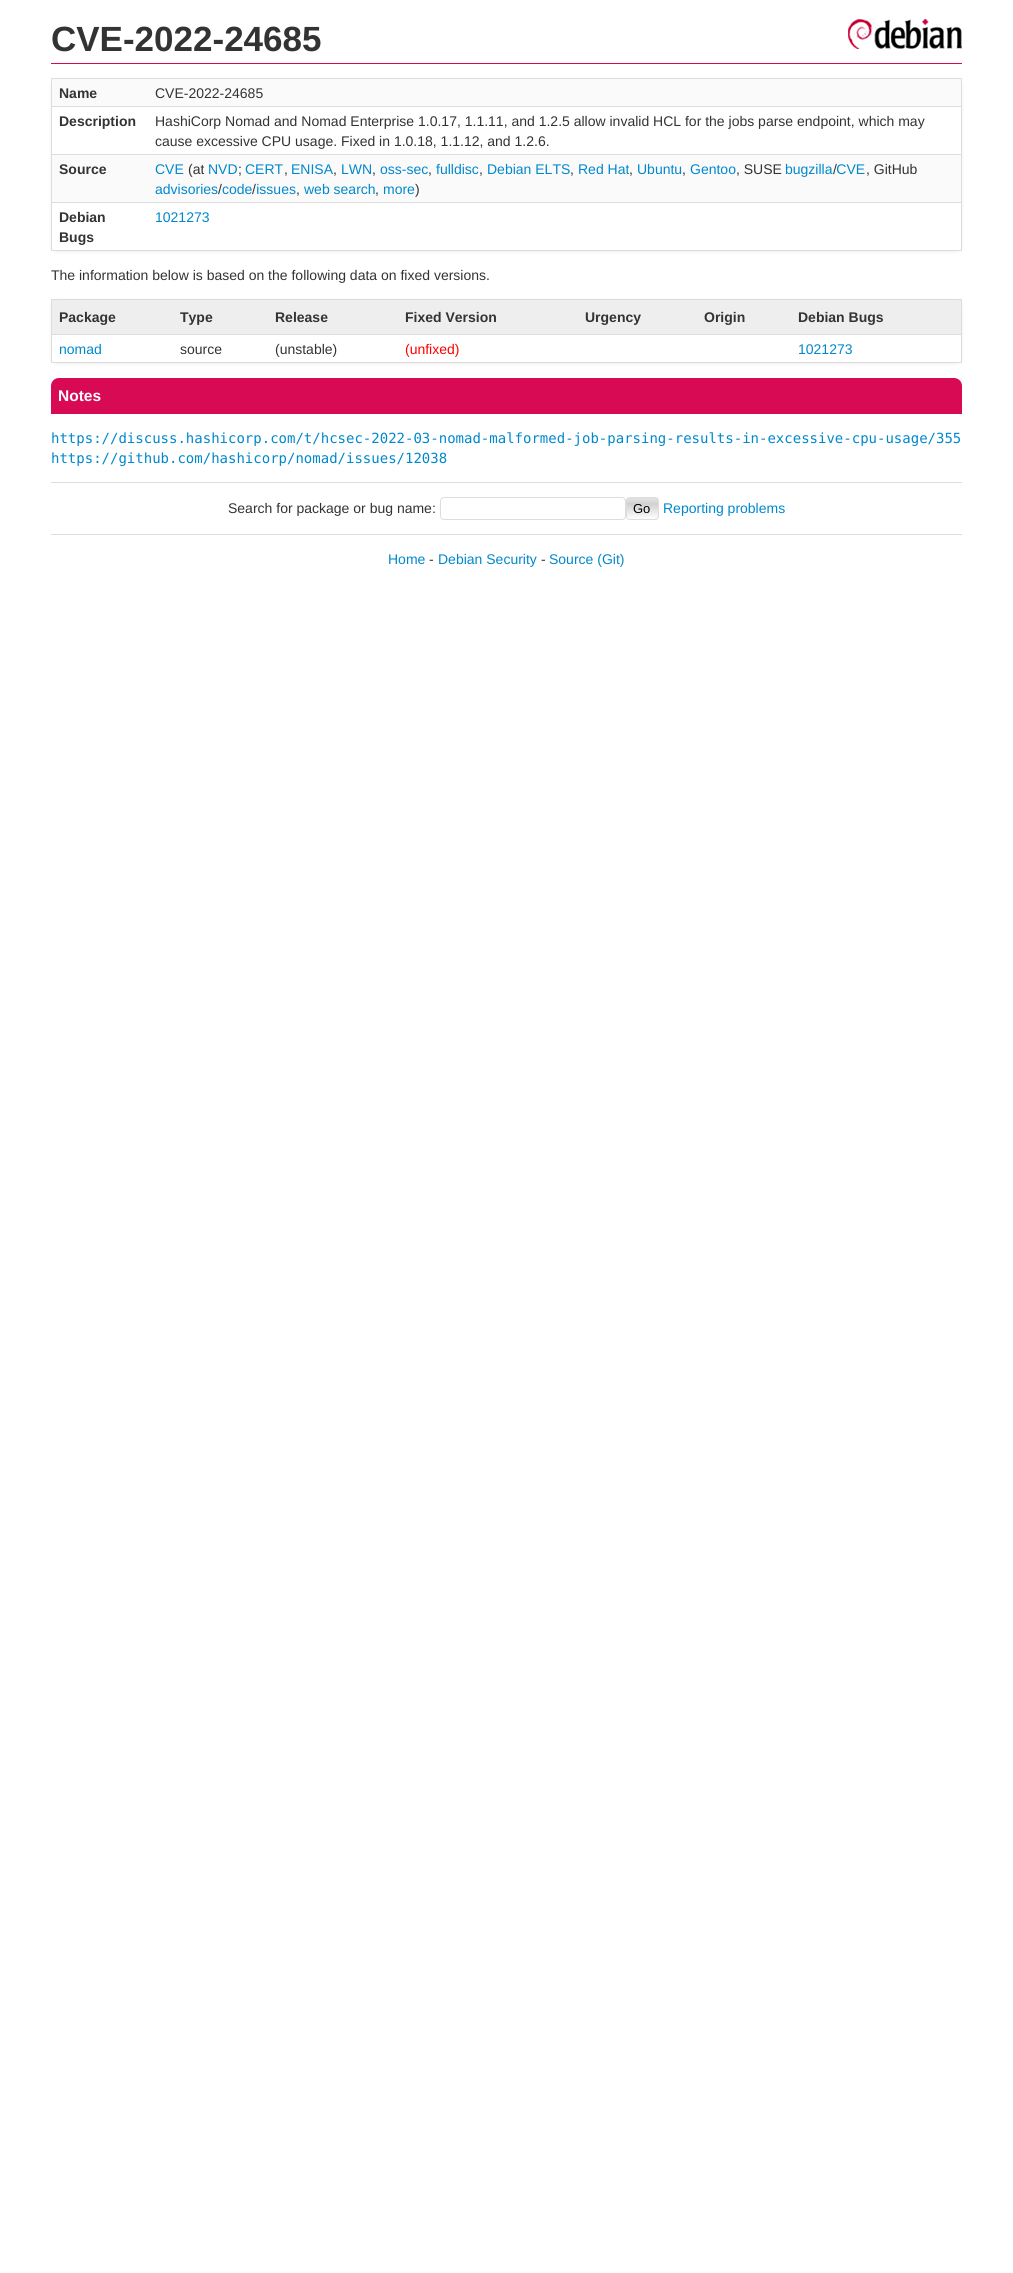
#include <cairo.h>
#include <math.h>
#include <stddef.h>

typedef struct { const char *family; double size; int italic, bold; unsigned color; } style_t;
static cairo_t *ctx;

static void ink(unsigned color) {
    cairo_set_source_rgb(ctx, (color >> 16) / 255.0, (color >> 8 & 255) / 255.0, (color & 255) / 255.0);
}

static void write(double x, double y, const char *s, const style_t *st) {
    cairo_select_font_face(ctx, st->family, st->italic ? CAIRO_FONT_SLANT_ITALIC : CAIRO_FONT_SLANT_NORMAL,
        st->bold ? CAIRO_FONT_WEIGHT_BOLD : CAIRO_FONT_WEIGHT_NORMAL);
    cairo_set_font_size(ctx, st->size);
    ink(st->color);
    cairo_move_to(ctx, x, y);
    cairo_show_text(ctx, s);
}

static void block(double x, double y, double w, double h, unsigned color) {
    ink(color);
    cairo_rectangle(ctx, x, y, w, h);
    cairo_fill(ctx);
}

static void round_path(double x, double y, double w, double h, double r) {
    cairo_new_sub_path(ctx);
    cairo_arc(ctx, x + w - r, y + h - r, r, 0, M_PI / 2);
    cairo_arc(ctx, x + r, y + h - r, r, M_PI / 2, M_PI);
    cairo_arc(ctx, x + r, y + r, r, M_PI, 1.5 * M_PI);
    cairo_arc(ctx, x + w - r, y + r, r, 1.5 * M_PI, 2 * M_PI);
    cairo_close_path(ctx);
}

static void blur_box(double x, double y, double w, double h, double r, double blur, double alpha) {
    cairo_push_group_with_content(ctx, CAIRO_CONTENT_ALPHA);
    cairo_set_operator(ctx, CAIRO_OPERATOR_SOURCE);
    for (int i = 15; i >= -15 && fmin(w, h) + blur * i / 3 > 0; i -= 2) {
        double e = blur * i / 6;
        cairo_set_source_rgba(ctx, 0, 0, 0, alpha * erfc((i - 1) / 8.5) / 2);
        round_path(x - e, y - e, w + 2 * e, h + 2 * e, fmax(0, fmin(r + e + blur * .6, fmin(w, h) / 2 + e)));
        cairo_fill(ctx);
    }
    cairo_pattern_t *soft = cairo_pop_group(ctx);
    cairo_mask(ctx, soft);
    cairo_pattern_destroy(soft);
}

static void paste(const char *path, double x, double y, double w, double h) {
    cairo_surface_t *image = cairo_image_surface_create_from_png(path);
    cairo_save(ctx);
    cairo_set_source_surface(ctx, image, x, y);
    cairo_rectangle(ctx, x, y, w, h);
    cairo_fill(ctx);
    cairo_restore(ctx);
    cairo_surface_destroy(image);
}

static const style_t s1 = {"Liberation Sans", 35, 0, 1, 0x333333};
static const style_t s2 = {"Liberation Sans", 14, 0, 1, 0x333333};
static const style_t s3 = {"Liberation Sans", 14, 0, 0, 0x333333};
static const style_t s4 = {"Liberation Sans", 14, 0, 0, 0x0088cc};
static const style_t s5 = {"Liberation Sans", 14, 0, 0, 0xff0000};
static const style_t s6 = {"Liberation Sans", 15.5, 0, 1, 0xffffff};
static const style_t s7 = {"DejaVu Sans Mono", 14, 0, 0, 0x0088cc};
static const style_t s8 = {"Liberation Sans", 13, 0, 0, 0x000000};

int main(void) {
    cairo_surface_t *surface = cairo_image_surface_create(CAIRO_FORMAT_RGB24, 1013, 2273);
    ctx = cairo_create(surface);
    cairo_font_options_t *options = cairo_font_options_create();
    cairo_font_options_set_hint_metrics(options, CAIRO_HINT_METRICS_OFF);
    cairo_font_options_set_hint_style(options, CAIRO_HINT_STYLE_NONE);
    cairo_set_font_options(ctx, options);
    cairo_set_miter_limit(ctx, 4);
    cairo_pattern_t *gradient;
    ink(0xffffff);
    cairo_paint(ctx);
    paste("pic1.png", 848, 19, 114, 30);
    block(51, 63, 911, 1, 0xd70a53);
    write(51, 51, "CVE-2022-24685", &s1);
    cairo_save(ctx);
    cairo_set_fill_rule(ctx, CAIRO_FILL_RULE_EVEN_ODD);
    cairo_new_path(ctx);
    cairo_move_to(ctx, 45, 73);
    cairo_line_to(ctx, 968, 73);
    cairo_line_to(ctx, 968, 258);
    cairo_line_to(ctx, 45, 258);
    cairo_close_path(ctx);
    cairo_move_to(ctx, 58, 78);
    cairo_line_to(ctx, 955, 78);
    cairo_curve_to(ctx, 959, 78, 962, 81, 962, 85);
    cairo_line_to(ctx, 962, 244);
    cairo_curve_to(ctx, 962, 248, 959, 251, 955, 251);
    cairo_line_to(ctx, 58, 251);
    cairo_curve_to(ctx, 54, 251, 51, 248, 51, 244);
    cairo_line_to(ctx, 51, 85);
    cairo_curve_to(ctx, 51, 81, 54, 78, 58, 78);
    cairo_close_path(ctx);
    cairo_clip(ctx);
    ink(0xeeeeee);
    blur_box(51, 79, 911, 173, 7, 1.5, 1);
    cairo_restore(ctx);
    block(51, 78, 911, 1, 0xdddddd);
    block(961, 78, 1, 173, 0xdddddd);
    block(51, 250, 911, 1, 0xdddddd);
    block(51, 78, 1, 173, 0xdddddd);
    block(52, 79, 909, 27, 0xfafafa);
    write(59, 98, "Name", &s2);
    block(51, 106, 911, 1, 0xdddddd);
    write(155, 98, "CVE-2022-24685", &s3);
    write(59, 126, "Description", &s2);
    block(51, 154, 911, 1, 0xdddddd);
    write(155, 126, "HashiCorp Nomad and Nomad Enterprise 1.0.17, 1.1.11, and 1.2.5 allow invalid HCL for the jobs parse endpoint, which may", &s3);
    write(155, 146, "cause excessive CPU usage. Fixed in 1.0.18, 1.1.12, and 1.2.6.", &s3);
    block(52, 155, 909, 47, 0xfafafa);
    write(59, 174, "Source", &s2);
    block(51, 202, 911, 1, 0xdddddd);
    write(188, 174, "(at", &s3);
    write(436, 174, "fulldisc", &s4);
    write(487, 174, "Debian ELTS", &s4);
    write(578, 174, "Red Hat", &s4);
    write(637, 174, "Ubuntu", &s4);
    write(785, 174, "bugzilla CVE", &s4);
    write(155, 174, "CVE", &s4);
    write(208, 174, "NVD", &s4);
    write(238, 174, ";", &s3);
    write(245, 174, "CERT", &s4);
    write(284, 174, ",", &s3);
    write(291, 174, "ENISA", &s4);
    write(333, 174, ",", &s3);
    write(341, 174, "LWN", &s4);
    write(372, 174, ",", &s3);
    write(380, 174, "oss-sec", &s4);
    write(428, 174, ",", &s3);
    write(479, 174, ",", &s3);
    write(570, 174, ",", &s3);
    write(629, 174, ",", &s3);
    write(682, 174, ",", &s3);
    write(690, 174, "Gentoo", &s4);
    write(736, 174, ", SUSE", &s3);
    write(833, 174, "/", &s3);
    write(866, 174, ", GitHub", &s3);
    write(155, 194, "advisories", &s4);
    write(218, 194, "/", &s3);
    write(222, 194, "code issues", &s4);
    write(252, 194, "/", &s3);
    write(296, 194, ",", &s3);
    write(304, 194, "web search", &s4);
    write(375, 194, ",", &s3);
    write(383, 194, "more", &s4);
    write(415, 194, ")", &s3);
    write(59, 222, "Debian", &s2);
    write(59, 242, "Bugs", &s2);
    write(155, 222, "1021273", &s4);
    write(51, 280, "The information below is based on the following data on fixed versions.", &s3);
    cairo_save(ctx);
    cairo_set_fill_rule(ctx, CAIRO_FILL_RULE_EVEN_ODD);
    cairo_new_path(ctx);
    cairo_move_to(ctx, 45, 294);
    cairo_line_to(ctx, 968, 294);
    cairo_line_to(ctx, 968, 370);
    cairo_line_to(ctx, 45, 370);
    cairo_close_path(ctx);
    cairo_move_to(ctx, 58, 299);
    cairo_line_to(ctx, 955, 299);
    cairo_curve_to(ctx, 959, 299, 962, 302, 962, 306);
    cairo_line_to(ctx, 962, 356);
    cairo_curve_to(ctx, 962, 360, 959, 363, 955, 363);
    cairo_line_to(ctx, 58, 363);
    cairo_curve_to(ctx, 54, 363, 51, 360, 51, 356);
    cairo_line_to(ctx, 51, 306);
    cairo_curve_to(ctx, 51, 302, 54, 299, 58, 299);
    cairo_close_path(ctx);
    cairo_clip(ctx);
    ink(0xeeeeee);
    blur_box(51, 300, 911, 64, 7, 1.5, 1);
    cairo_restore(ctx);
    block(51, 299, 911, 1, 0xdddddd);
    block(961, 299, 1, 64, 0xdddddd);
    block(51, 362, 911, 1, 0xdddddd);
    block(51, 299, 1, 64, 0xdddddd);
    block(52, 300, 909, 34, 0xeeeeee);
    write(59, 322, "Package", &s2);
    write(180, 322, "Type", &s2);
    write(275, 322, "Release", &s2);
    write(405, 322, "Fixed Version", &s2);
    write(585, 322, "Urgency", &s2);
    write(704, 322, "Origin", &s2);
    block(51, 334, 911, 1, 0xdddddd);
    write(798, 322, "Debian Bugs", &s2);
    write(59, 354, "nomad", &s4);
    write(180, 354, "source", &s3);
    write(275, 354, "(unstable)", &s3);
    write(405, 354, "(unfixed)", &s5);
    write(798, 354, "1021273", &s4);
    ink(0xd70a53);
    cairo_new_path(ctx);
    cairo_move_to(ctx, 59, 378);
    cairo_line_to(ctx, 954, 378);
    cairo_curve_to(ctx, 958.5, 378, 962, 381.5, 962, 386);
    cairo_line_to(ctx, 962, 414);
    cairo_line_to(ctx, 51, 414);
    cairo_line_to(ctx, 51, 386);
    cairo_curve_to(ctx, 51, 381.5, 54.5, 378, 59, 378);
    cairo_close_path(ctx);
    cairo_fill(ctx);
    write(58, 401, "Notes", &s6);
    write(51, 443, "https://discuss.hashicorp.com/t/hcsec-2022-03-nomad-malformed-job-parsing-results-in-excessive-cpu-usage/355", &s7);
    write(51, 463, "https://github.com/hashicorp/nomad/issues/12038", &s7);
    block(51, 482, 911, 1, 0xdddddd);
    block(51, 534, 911, 1, 0xdddddd);
    write(228, 513, "Search for package or bug name:", &s3);
    round_path(440.5, 497.5, 185, 22, 3.5);
    ink(0xdddddd);
    cairo_set_line_width(ctx, 1);
    cairo_stroke(ctx);
    cairo_save(ctx);
    round_path(626, 497, 33, 23, 4);
    cairo_clip(ctx);
    gradient = cairo_pattern_create_linear(643, 498, 643, 519);
    cairo_pattern_add_color_stop_rgba(gradient, 0, 0.886, 0.886, 0.886, 1);
    cairo_pattern_add_color_stop_rgba(gradient, 0.15, 0.859, 0.859, 0.859, 1);
    cairo_pattern_add_color_stop_rgba(gradient, 0.28, 0.82, 0.82, 0.82, 1);
    cairo_pattern_add_color_stop_rgba(gradient, 1, 0.996, 0.996, 0.996, 1);
    cairo_set_source(ctx, gradient);
    cairo_pattern_destroy(gradient);
    cairo_rectangle(ctx, 626, 498, 33, 21);
    cairo_fill(ctx);
    cairo_restore(ctx);
    round_path(626.5, 497.5, 32, 22, 3.5);
    cairo_stroke(ctx);
    write(633, 513, "Go", &s8);
    write(663, 513, "Reporting problems", &s4);
    write(388, 564, "Home", &s4);
    write(429, 564, "-", &s3);
    write(438, 564, "Debian Security", &s4);
    write(541, 564, "-", &s3);
    write(549, 564, "Source (Git)", &s4);
    cairo_surface_write_to_png(surface, "screenshot.png");
    cairo_font_options_destroy(options);
    cairo_destroy(ctx);
    cairo_surface_destroy(surface);
    return 0;
}
